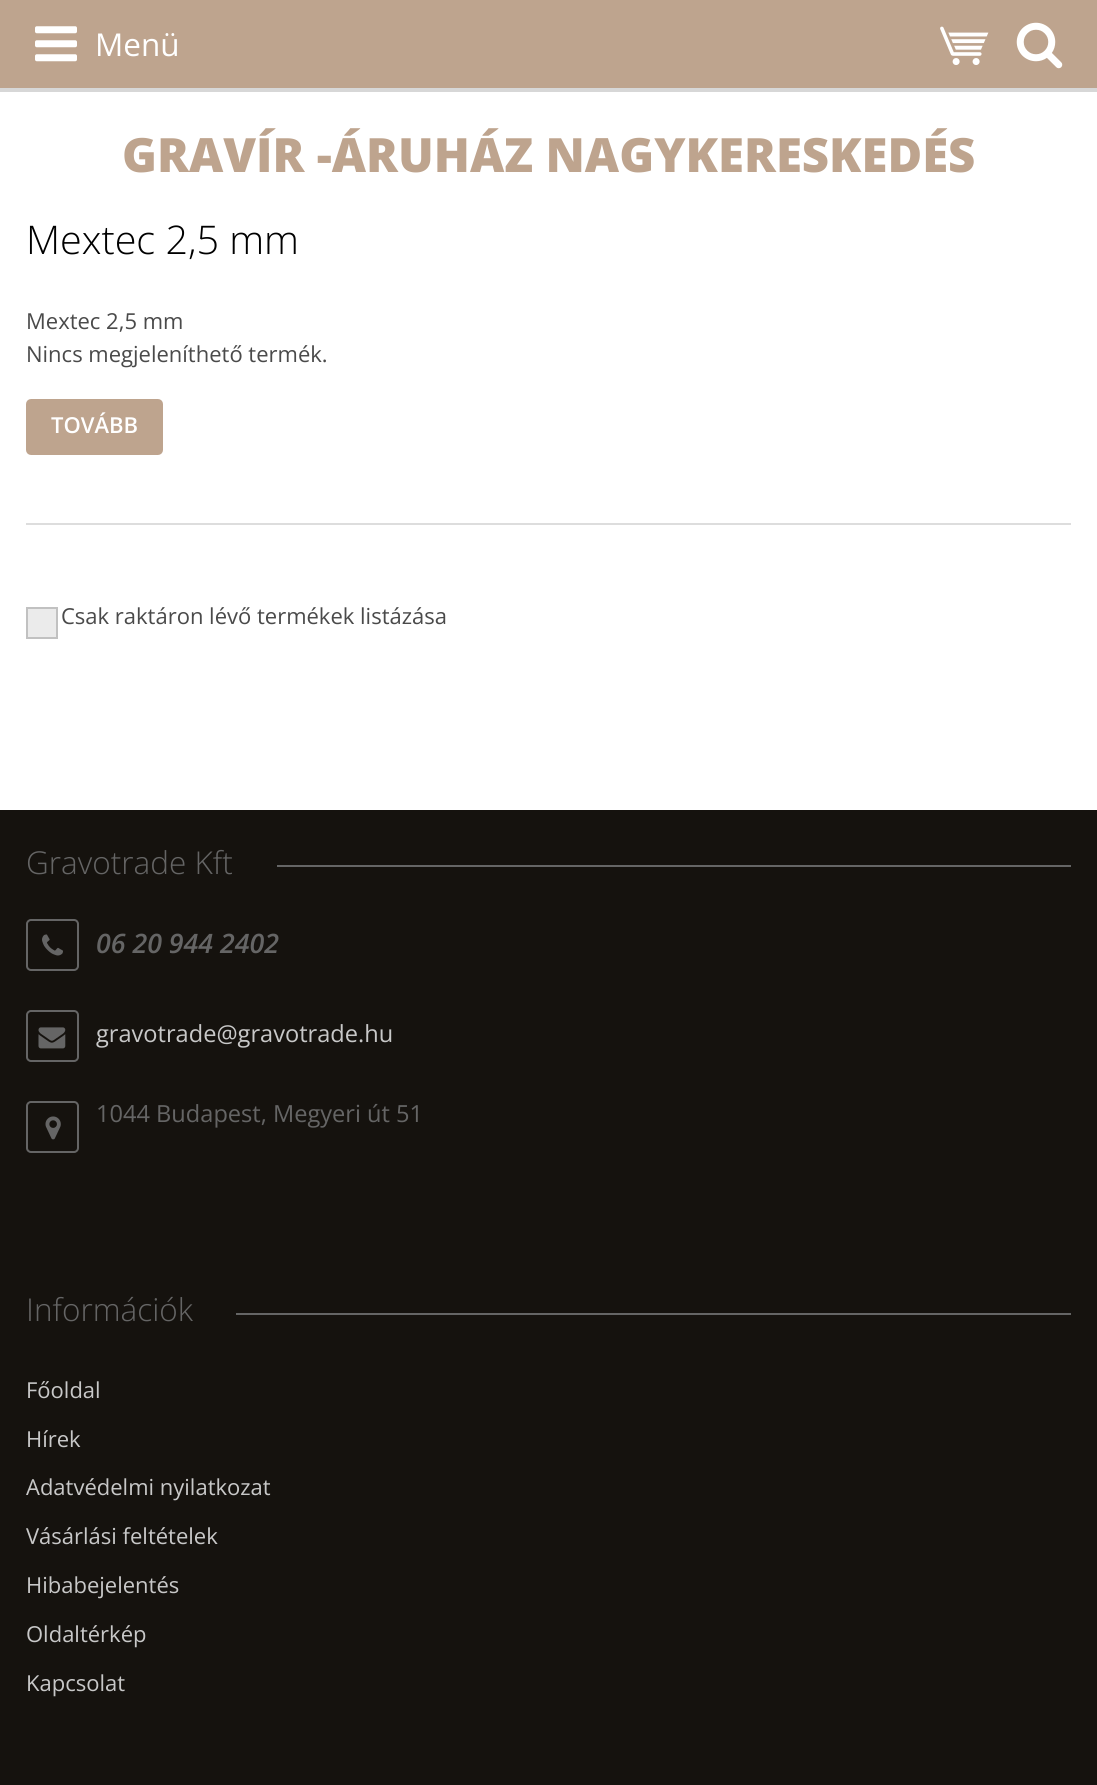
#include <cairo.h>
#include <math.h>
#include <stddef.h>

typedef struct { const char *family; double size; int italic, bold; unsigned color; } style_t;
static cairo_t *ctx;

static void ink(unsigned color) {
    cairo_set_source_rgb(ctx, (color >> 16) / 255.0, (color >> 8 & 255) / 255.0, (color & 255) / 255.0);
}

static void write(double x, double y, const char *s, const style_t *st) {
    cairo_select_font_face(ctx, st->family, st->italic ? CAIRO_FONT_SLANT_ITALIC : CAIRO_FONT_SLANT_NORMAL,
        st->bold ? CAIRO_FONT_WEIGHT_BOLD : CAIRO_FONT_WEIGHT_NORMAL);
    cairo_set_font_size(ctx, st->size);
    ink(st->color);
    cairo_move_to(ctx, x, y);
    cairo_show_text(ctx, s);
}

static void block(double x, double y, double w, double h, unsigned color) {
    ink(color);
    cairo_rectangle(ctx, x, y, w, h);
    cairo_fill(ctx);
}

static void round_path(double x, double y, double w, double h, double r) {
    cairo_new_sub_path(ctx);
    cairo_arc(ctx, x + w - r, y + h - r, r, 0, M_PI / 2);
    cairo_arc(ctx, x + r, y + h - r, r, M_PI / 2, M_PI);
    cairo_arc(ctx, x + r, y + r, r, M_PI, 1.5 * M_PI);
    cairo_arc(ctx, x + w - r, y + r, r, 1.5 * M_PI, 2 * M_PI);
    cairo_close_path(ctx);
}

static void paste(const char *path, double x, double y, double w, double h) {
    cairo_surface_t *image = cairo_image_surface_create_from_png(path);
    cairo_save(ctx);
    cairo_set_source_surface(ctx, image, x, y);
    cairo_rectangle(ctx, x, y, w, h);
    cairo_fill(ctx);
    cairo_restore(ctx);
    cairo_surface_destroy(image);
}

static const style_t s1 = {"Open Sans", 31.5, 0, 0, 0xffffff};
static const style_t s2 = {"Open Sans ExtraBold", 47.25, 0, 0, 0xbea48e};
static const style_t s3 = {"Open Sans Light", 39.5, 0, 0, 0x000000};
static const style_t s4 = {"Open Sans", 22, 0, 0, 0x4a4a4a};
static const style_t s5 = {"Open Sans SemiBold", 22, 0, 0, 0xffffff};
static const style_t s6 = {"Open Sans Light", 31.5, 0, 0, 0x656565};
static const style_t s7 = {"Open Sans SemiBold", 26.75, 1, 0, 0x656565};
static const style_t s8 = {"Open Sans", 23.6, 0, 0, 0xc8c8c8};
static const style_t s9 = {"Open Sans", 23.6, 0, 0, 0x656565};
static const style_t s10 = {"Open Sans", 22, 0, 0, 0xc8c8c8};

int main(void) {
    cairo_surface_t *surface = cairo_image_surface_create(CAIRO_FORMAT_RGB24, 1097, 1785);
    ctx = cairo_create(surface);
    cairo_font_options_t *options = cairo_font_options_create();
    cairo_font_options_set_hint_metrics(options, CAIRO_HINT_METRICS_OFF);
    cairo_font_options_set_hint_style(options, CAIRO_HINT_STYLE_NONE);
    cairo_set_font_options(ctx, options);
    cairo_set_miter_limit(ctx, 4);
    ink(0xffffff);
    cairo_paint(ctx);
    block(0, 0, 1097, 88, 0xbea48e);
    paste("pic1.png", 35, 26, 42, 36);
    write(95, 56, "Menü", &s1);
    paste("pic2.png", 940, 26, 49, 39);
    paste("pic3.png", 1016, 22, 47, 47);
    block(0, 88, 1097, 4, 0xd7d7d7);
    write(122, 172, "GRAVÍR -ÁRUHÁZ NAGYKERESKEDÉS", &s2);
    write(26, 254, "Mextec 2,5 mm", &s3);
    write(26, 329, "Mextec 2,5 mm", &s4);
    write(26, 362, "Nincs megjeleníthető termék.", &s4);
    ink(0xbea48e);
    round_path(28, 401, 133, 52, 3);
    cairo_fill_preserve(ctx);
    cairo_set_line_width(ctx, 4);
    cairo_stroke(ctx);
    write(51, 433, "TOVÁBB", &s5);
    block(26, 523, 1045, 2, 0xdddddd);
    ink(0xebebeb);
    cairo_rectangle(ctx, 27, 608, 30, 30);
    cairo_fill_preserve(ctx);
    ink(0xc1c1c1);
    cairo_set_line_width(ctx, 2);
    cairo_stroke(ctx);
    write(61, 624, "Csak raktáron lévő termékek listázása", &s4);
    block(0, 810, 1097, 975, 0x15120e);
    write(26, 874, "Gravotrade Kft", &s6);
    block(277, 865, 794, 2, 0x656565);
    round_path(27, 920, 51, 50, 4);
    cairo_stroke(ctx);
    paste("pic4.png", 42, 934, 21, 22);
    write(96, 953, "06 20 944 2402", &s7);
    round_path(27, 1011, 51, 50, 4);
    cairo_stroke(ctx);
    paste("pic5.png", 38, 1027, 28, 22);
    write(96, 1042, "gravotrade@gravotrade.hu", &s8);
    round_path(27, 1102, 51, 50, 4);
    ink(0x656565);
    cairo_stroke(ctx);
    paste("pic6.png", 45, 1116, 16, 24);
    write(96, 1122, "1044 Budapest, Megyeri út 51", &s9);
    write(26, 1321, "Információk", &s6);
    block(236, 1313, 835, 2, 0x656565);
    write(26, 1398, "Főoldal", &s10);
    write(26, 1447, "Hírek", &s10);
    write(26, 1495, "Adatvédelmi nyilatkozat", &s10);
    write(26, 1544, "Vásárlási feltételek", &s10);
    write(26, 1593, "Hibabejelentés", &s10);
    write(26, 1642, "Oldaltérkép", &s10);
    write(26, 1691, "Kapcsolat", &s10);
    cairo_surface_write_to_png(surface, "screenshot.png");
    cairo_font_options_destroy(options);
    cairo_destroy(ctx);
    cairo_surface_destroy(surface);
    return 0;
}
